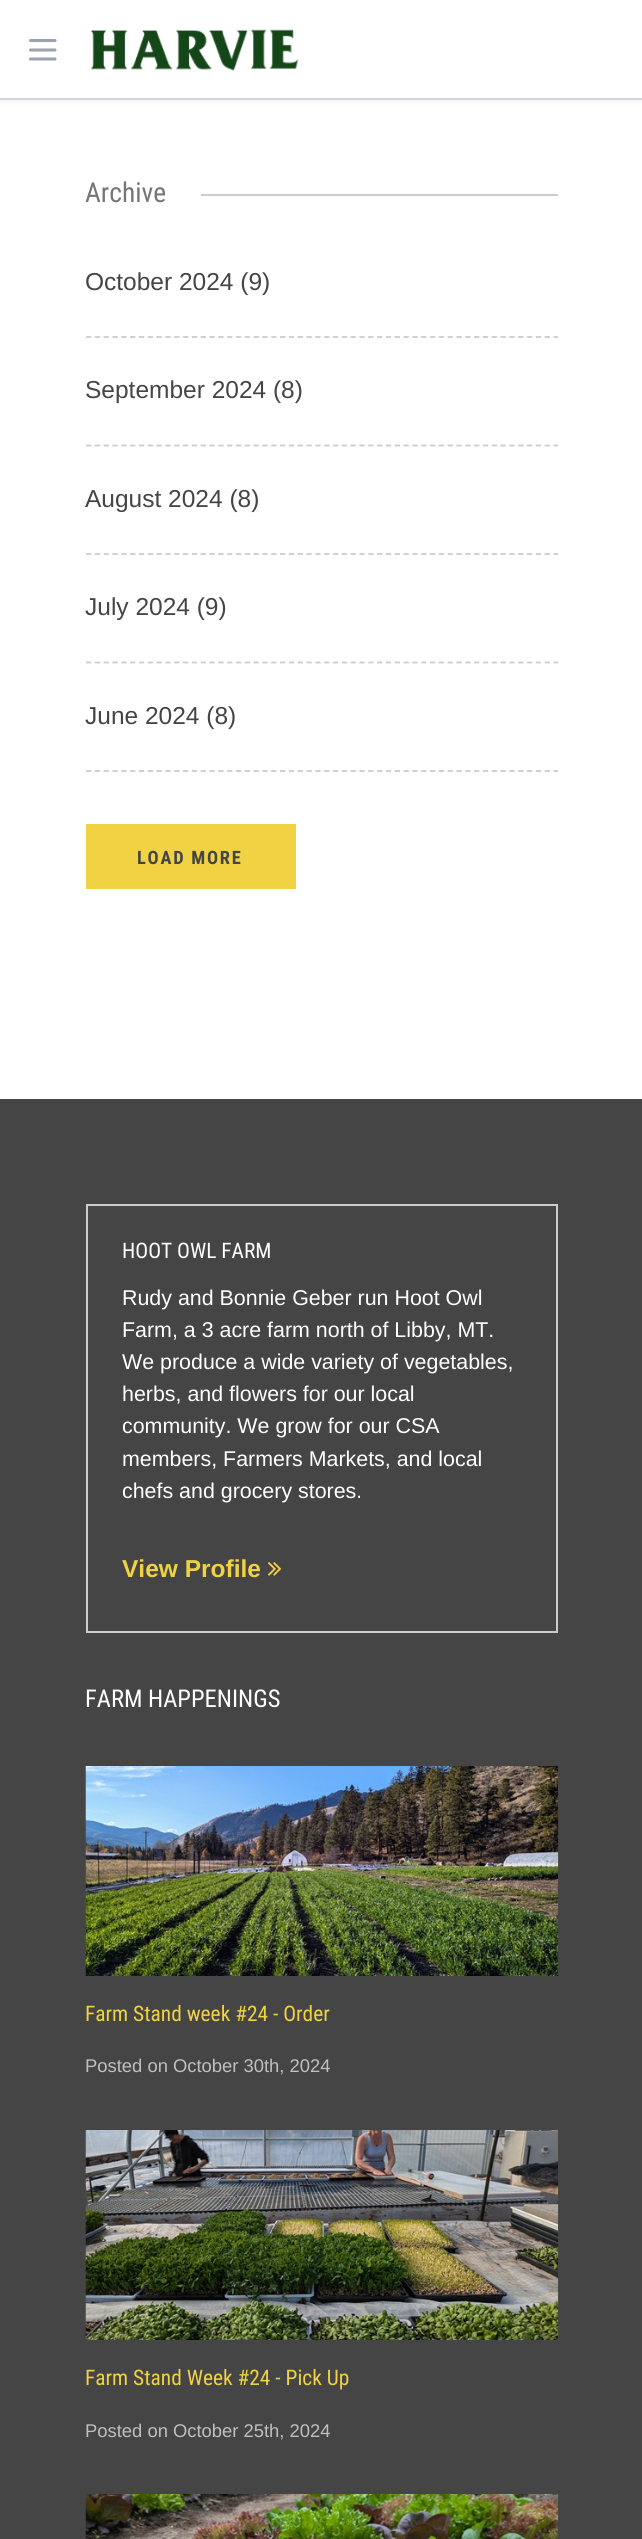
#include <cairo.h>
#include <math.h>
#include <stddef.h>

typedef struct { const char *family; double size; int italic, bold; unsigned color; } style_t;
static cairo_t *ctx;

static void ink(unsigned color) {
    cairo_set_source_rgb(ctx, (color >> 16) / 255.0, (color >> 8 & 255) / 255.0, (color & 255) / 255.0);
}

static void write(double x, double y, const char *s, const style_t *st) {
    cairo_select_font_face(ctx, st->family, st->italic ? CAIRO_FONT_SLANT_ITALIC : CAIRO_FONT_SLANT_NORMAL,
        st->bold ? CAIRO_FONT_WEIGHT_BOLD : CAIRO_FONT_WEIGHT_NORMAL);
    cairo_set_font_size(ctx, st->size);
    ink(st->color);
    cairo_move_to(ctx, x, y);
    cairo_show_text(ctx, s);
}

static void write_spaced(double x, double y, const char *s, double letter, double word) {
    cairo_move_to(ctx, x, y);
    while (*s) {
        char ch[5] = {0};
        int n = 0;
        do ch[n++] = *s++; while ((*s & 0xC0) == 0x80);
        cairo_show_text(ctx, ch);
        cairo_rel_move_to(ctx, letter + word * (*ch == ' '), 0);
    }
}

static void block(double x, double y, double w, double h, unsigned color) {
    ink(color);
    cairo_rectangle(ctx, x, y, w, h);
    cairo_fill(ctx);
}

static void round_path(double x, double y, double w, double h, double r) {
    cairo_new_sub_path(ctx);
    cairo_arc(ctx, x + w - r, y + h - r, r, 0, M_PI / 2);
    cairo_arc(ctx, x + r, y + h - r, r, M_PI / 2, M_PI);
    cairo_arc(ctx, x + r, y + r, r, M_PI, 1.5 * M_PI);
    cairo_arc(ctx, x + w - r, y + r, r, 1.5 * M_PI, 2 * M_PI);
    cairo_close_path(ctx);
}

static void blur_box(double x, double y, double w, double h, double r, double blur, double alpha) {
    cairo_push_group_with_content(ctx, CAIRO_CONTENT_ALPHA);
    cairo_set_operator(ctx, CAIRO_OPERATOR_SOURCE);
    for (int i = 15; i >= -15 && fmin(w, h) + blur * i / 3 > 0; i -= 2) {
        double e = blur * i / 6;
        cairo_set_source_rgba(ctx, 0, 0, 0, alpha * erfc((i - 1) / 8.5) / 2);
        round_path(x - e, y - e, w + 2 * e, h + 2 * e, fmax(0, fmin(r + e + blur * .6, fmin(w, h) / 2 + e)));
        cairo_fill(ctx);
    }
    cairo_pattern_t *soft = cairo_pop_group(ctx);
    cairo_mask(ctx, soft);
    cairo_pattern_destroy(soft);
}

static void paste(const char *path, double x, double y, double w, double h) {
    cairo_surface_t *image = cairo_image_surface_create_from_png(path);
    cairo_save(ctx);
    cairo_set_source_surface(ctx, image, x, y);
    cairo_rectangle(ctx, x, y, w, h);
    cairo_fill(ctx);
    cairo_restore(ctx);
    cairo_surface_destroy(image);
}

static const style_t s1 = {"Roboto Condensed", 27.5, 0, 0, 0x767676};
static const style_t s2 = {"Liberation Sans", 24.5, 0, 0, 0x454545};
static const style_t s3 = {"Roboto Condensed", 21.4, 0, 0, 0xffffff};
static const style_t s4 = {"Liberation Sans", 21.4, 0, 0, 0xffffff};
static const style_t s5 = {"Liberation Sans", 24.5, 0, 1, 0xf0d242};
static const style_t s6 = {"Roboto Condensed", 24.5, 0, 0, 0xffffff};
static const style_t s7 = {"Roboto Condensed", 21.4, 0, 0, 0xf0d242};
static const style_t s8 = {"Liberation Sans", 18.4, 0, 0, 0xbfbfbf};

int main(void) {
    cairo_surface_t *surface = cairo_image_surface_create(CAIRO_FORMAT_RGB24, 642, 2539);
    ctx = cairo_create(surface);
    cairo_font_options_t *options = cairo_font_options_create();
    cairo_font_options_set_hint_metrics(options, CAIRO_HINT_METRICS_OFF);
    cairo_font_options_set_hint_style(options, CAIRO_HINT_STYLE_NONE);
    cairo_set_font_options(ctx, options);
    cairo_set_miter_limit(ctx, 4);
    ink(0xffffff);
    cairo_paint(ctx);
    ink(0x000000);
    blur_box(0, 2, 642, 100, 0, 2, 0.05);
    block(0, 0, 642, 98, 0xffffff);
    block(0, 98, 642, 2, 0xd1d5db);
    cairo_new_path(ctx);
    cairo_move_to(ctx, 30.5, 40.5);
    cairo_line_to(ctx, 55, 40.5);
    cairo_move_to(ctx, 30.5, 50);
    cairo_line_to(ctx, 55, 50);
    cairo_move_to(ctx, 30.5, 59);
    cairo_line_to(ctx, 55, 59);
    ink(0x9ca3af);
    cairo_set_line_width(ctx, 3.1);
    cairo_set_line_cap(ctx, CAIRO_LINE_CAP_ROUND);
    cairo_set_line_join(ctx, CAIRO_LINE_JOIN_ROUND);
    cairo_stroke(ctx);
    paste("pic1.png", 91, 29, 208, 42);
    write(85, 202, "Archive", &s1);
    block(201, 194, 357, 2, 0xcccccc);
    cairo_new_path(ctx);
    cairo_move_to(ctx, 86, 337);
    cairo_line_to(ctx, 558, 337);
    cairo_set_line_width(ctx, 1.8);
    cairo_set_line_cap(ctx, CAIRO_LINE_CAP_BUTT);
    cairo_set_line_join(ctx, CAIRO_LINE_JOIN_MITER);
    cairo_set_dash(ctx, (double[]){5.25, 3.57}, 2, 0);
    cairo_stroke(ctx);
    write(85, 290, "October 2024 (9)", &s2);
    cairo_new_path(ctx);
    cairo_move_to(ctx, 86, 445.5);
    cairo_line_to(ctx, 558, 445.5);
    ink(0xcccccc);
    cairo_stroke(ctx);
    write(85, 398, "September 2024 (8)", &s2);
    cairo_new_path(ctx);
    cairo_move_to(ctx, 86, 554);
    cairo_line_to(ctx, 558, 554);
    ink(0xcccccc);
    cairo_stroke(ctx);
    write(85, 507, "August 2024 (8)", &s2);
    cairo_new_path(ctx);
    cairo_move_to(ctx, 86, 662.5);
    cairo_line_to(ctx, 558, 662.5);
    ink(0xcccccc);
    cairo_stroke(ctx);
    write(85, 615, "July 2024 (9)", &s2);
    cairo_new_path(ctx);
    cairo_move_to(ctx, 86, 771);
    cairo_line_to(ctx, 558, 771);
    ink(0xcccccc);
    cairo_stroke(ctx);
    write(85, 724, "June 2024 (8)", &s2);
    block(86, 824, 210, 65, 0xf0d242);
    cairo_select_font_face(ctx, "Roboto Condensed", CAIRO_FONT_SLANT_NORMAL, CAIRO_FONT_WEIGHT_BOLD);
    cairo_set_font_size(ctx, 18.4);
    ink(0x454545);
    write_spaced(137, 864, "LOAD MORE", 1.75, 0);
    block(0, 1099, 642, 1440, 0x454545);
    cairo_rectangle(ctx, 87, 1205, 470, 427);
    ink(0xcccccc);
    cairo_set_line_width(ctx, 2);
    cairo_set_dash(ctx, NULL, 0, 0);
    cairo_stroke(ctx);
    write(122, 1258, "HOOT OWL FARM", &s3);
    write(122, 1305, "Rudy and Bonnie Geber run Hoot Owl", &s4);
    write(122, 1337, "Farm, a 3 acre farm north of Libby, MT.", &s4);
    write(122, 1369, "We produce a wide variety of vegetables,", &s4);
    write(122, 1401, "herbs, and flowers for our local", &s4);
    write(122, 1433, "community. We grow for our CSA", &s4);
    write(122, 1466, "members, Farmers Markets, and local", &s4);
    write(122, 1498, "chefs and grocery stores.", &s4);
    write(122, 1577, "View Profile", &s5);
    paste("pic2.png", 268, 1562, 14, 14);
    write(85, 1707, "FARM HAPPENINGS", &s6);
    paste("pic3.png", 85, 1766, 474, 210);
    write(85, 2021, "Farm Stand week #24 - Order", &s7);
    write(85, 2072, "Posted on October 30th, 2024", &s8);
    paste("pic4.png", 85, 2130, 474, 210);
    write(85, 2385, "Farm Stand Week #24 - Pick Up", &s7);
    write(85, 2437, "Posted on October 25th, 2024", &s8);
    paste("pic5.png", 85, 2494, 474, 45);
    cairo_surface_write_to_png(surface, "screenshot.png");
    cairo_font_options_destroy(options);
    cairo_destroy(ctx);
    cairo_surface_destroy(surface);
    return 0;
}
